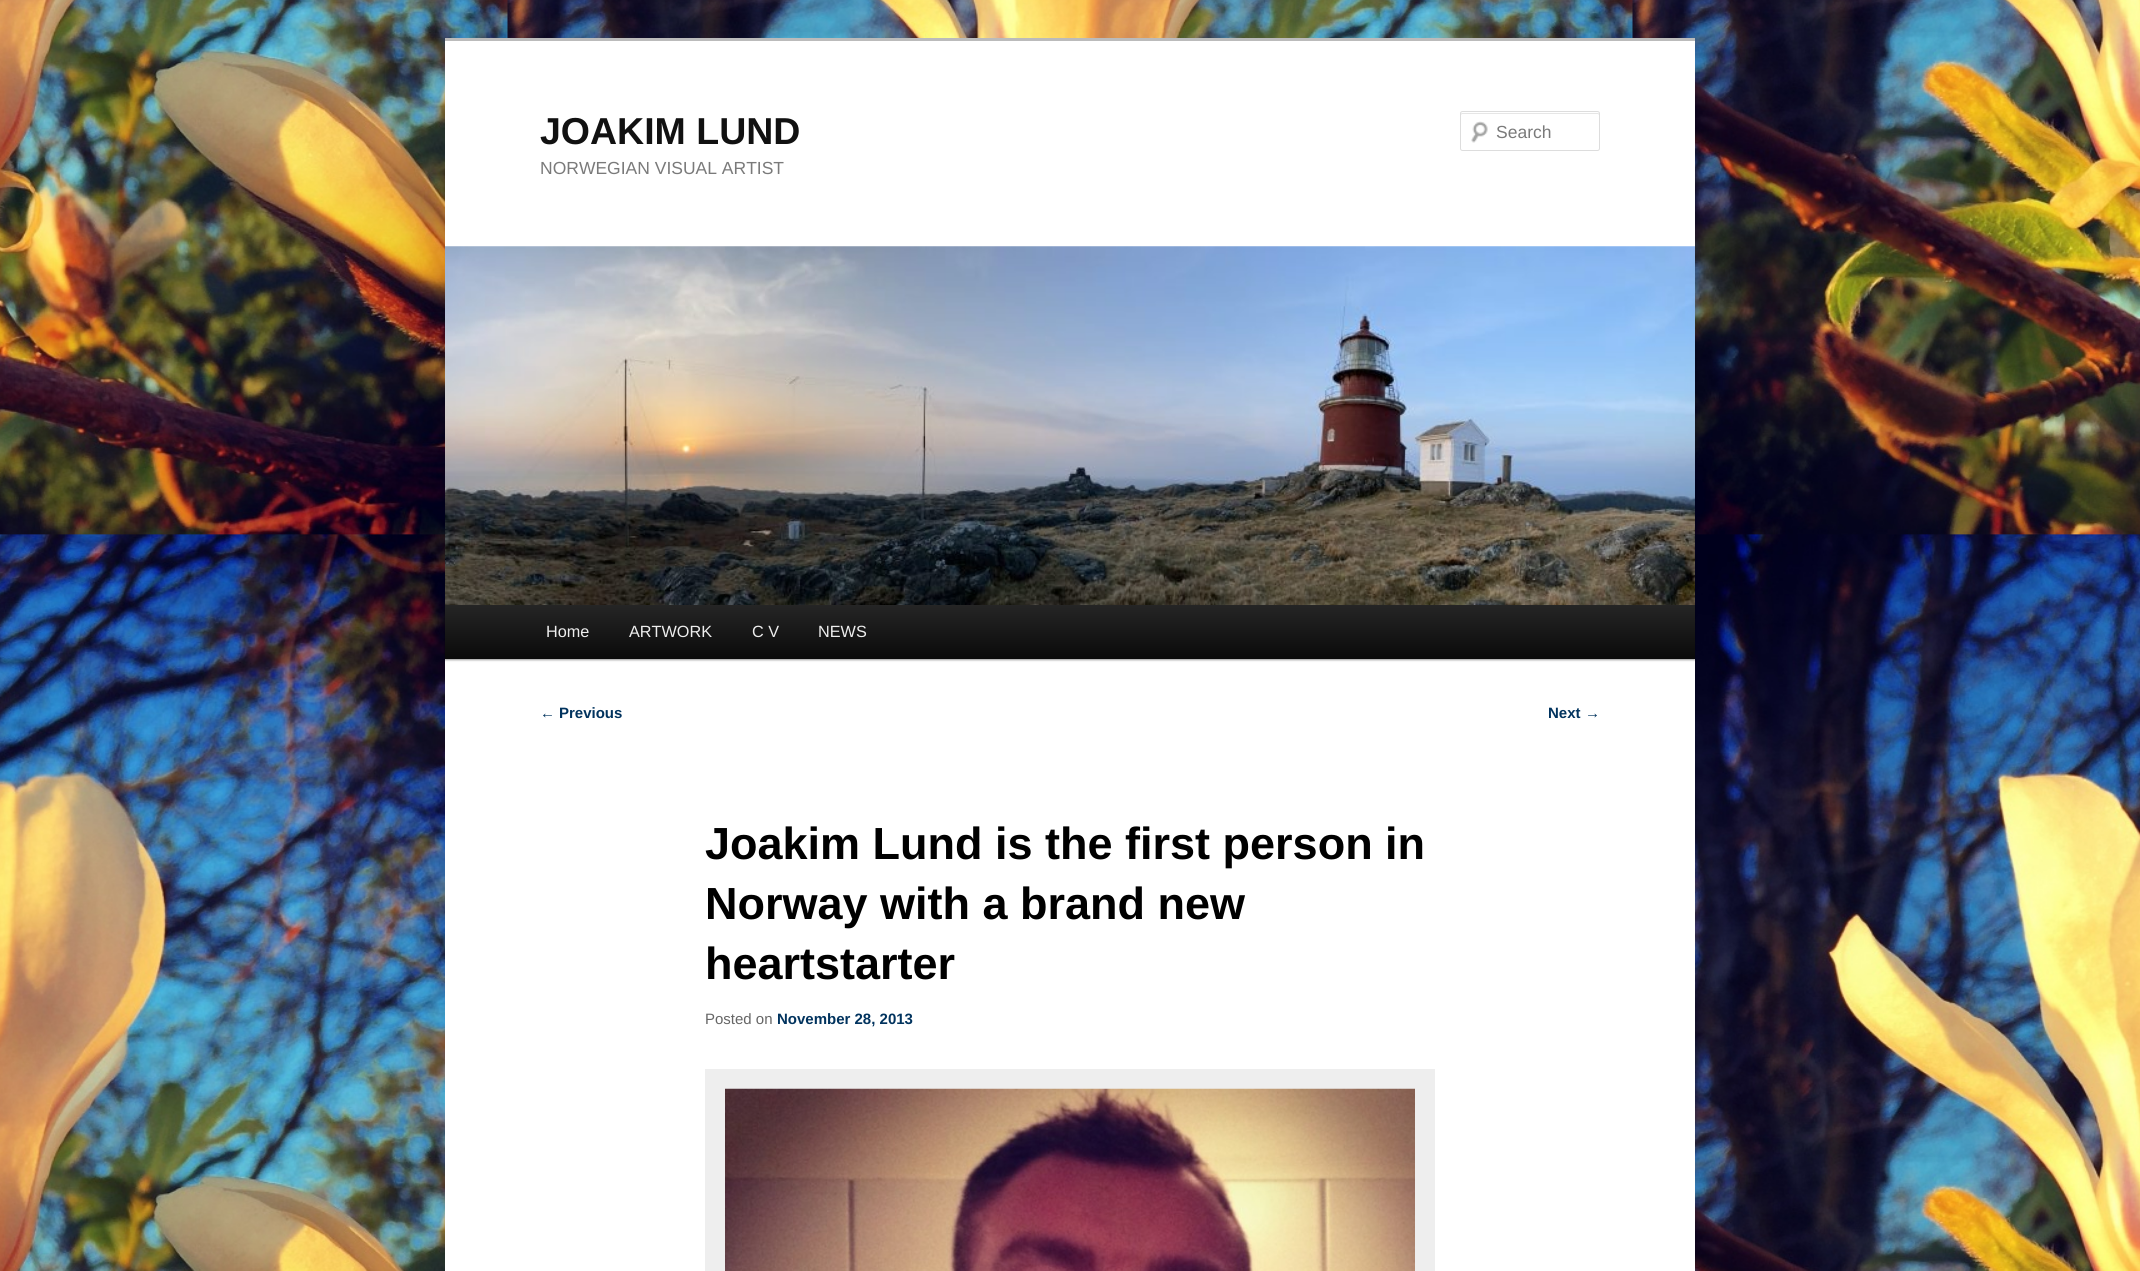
#include <cairo.h>
#include <math.h>
#include <stddef.h>

typedef struct { const char *family; double size; int italic, bold; unsigned color; } style_t;
static cairo_t *ctx;

static void ink(unsigned color) {
    cairo_set_source_rgb(ctx, (color >> 16) / 255.0, (color >> 8 & 255) / 255.0, (color & 255) / 255.0);
}

static void write(double x, double y, const char *s, const style_t *st) {
    cairo_select_font_face(ctx, st->family, st->italic ? CAIRO_FONT_SLANT_ITALIC : CAIRO_FONT_SLANT_NORMAL,
        st->bold ? CAIRO_FONT_WEIGHT_BOLD : CAIRO_FONT_WEIGHT_NORMAL);
    cairo_set_font_size(ctx, st->size);
    ink(st->color);
    cairo_move_to(ctx, x, y);
    cairo_show_text(ctx, s);
}

static void block(double x, double y, double w, double h, unsigned color) {
    ink(color);
    cairo_rectangle(ctx, x, y, w, h);
    cairo_fill(ctx);
}

static void round_path(double x, double y, double w, double h, double r) {
    cairo_new_sub_path(ctx);
    cairo_arc(ctx, x + w - r, y + h - r, r, 0, M_PI / 2);
    cairo_arc(ctx, x + r, y + h - r, r, M_PI / 2, M_PI);
    cairo_arc(ctx, x + r, y + r, r, M_PI, 1.5 * M_PI);
    cairo_arc(ctx, x + w - r, y + r, r, 1.5 * M_PI, 2 * M_PI);
    cairo_close_path(ctx);
}

static void blur_box(double x, double y, double w, double h, double r, double blur, double alpha) {
    cairo_push_group_with_content(ctx, CAIRO_CONTENT_ALPHA);
    cairo_set_operator(ctx, CAIRO_OPERATOR_SOURCE);
    for (int i = 15; i >= -15 && fmin(w, h) + blur * i / 3 > 0; i -= 2) {
        double e = blur * i / 6;
        cairo_set_source_rgba(ctx, 0, 0, 0, alpha * erfc((i - 1) / 8.5) / 2);
        round_path(x - e, y - e, w + 2 * e, h + 2 * e, fmax(0, fmin(r + e + blur * .6, fmin(w, h) / 2 + e)));
        cairo_fill(ctx);
    }
    cairo_pattern_t *soft = cairo_pop_group(ctx);
    cairo_mask(ctx, soft);
    cairo_pattern_destroy(soft);
}

static void paste(const char *path, double x, double y, double w, double h) {
    cairo_surface_t *image = cairo_image_surface_create_from_png(path);
    cairo_save(ctx);
    cairo_set_source_surface(ctx, image, x, y);
    cairo_rectangle(ctx, x, y, w, h);
    cairo_fill(ctx);
    cairo_restore(ctx);
    cairo_surface_destroy(image);
}

static const style_t s1 = {"Liberation Sans", 37.5, 0, 1, 0x111111};
static const style_t s2 = {"Liberation Sans", 17.5, 0, 0, 0x7a7a7a};
static const style_t s3 = {"Liberation Sans", 16.25, 0, 0, 0xeeeeee};
static const style_t s4 = {"Liberation Sans", 15, 0, 0, 0x01335e};
static const style_t s5 = {"Liberation Sans", 15, 0, 1, 0x01335e};
static const style_t s6 = {"Liberation Sans", 45, 0, 1, 0x000000};
static const style_t s7 = {"Liberation Sans", 15, 0, 0, 0x666666};

int main(void) {
    cairo_surface_t *surface = cairo_image_surface_create(CAIRO_FORMAT_RGB24, 2140, 1271);
    ctx = cairo_create(surface);
    cairo_font_options_t *options = cairo_font_options_create();
    cairo_font_options_set_hint_metrics(options, CAIRO_HINT_METRICS_OFF);
    cairo_font_options_set_hint_style(options, CAIRO_HINT_STYLE_NONE);
    cairo_set_font_options(ctx, options);
    cairo_set_miter_limit(ctx, 4);
    cairo_pattern_t *gradient;
    ink(0xffffff);
    cairo_paint(ctx);
    paste("pic1.png", 0, 0, 2140, 1271);
    block(445, 41, 1250, 1230, 0xffffff);
    block(445, 38, 1250, 3, 0xbbbbbb);
    write(540, 144, "JOAKIM LUND", &s1);
    write(540, 174, "NORWEGIAN VISUAL ARTIST", &s2);
    paste("pic2.png", 1471, 121, 17, 22);
    ink(0xe6e6e6);
    cairo_new_path(ctx);
    cairo_move_to(ctx, 1462, 114);
    cairo_line_to(ctx, 1598, 114);
    cairo_line_to(ctx, 1599, 115);
    cairo_curve_to(ctx, 1599, 114, 1599, 113, 1598, 113);
    cairo_line_to(ctx, 1462, 113);
    cairo_curve_to(ctx, 1461, 113, 1461, 114, 1461, 115);
    cairo_close_path(ctx);
    cairo_fill(ctx);
    round_path(1460.5, 111.5, 139, 39, 2);
    ink(0xdddddd);
    cairo_set_line_width(ctx, 1);
    cairo_stroke(ctx);
    write(1496, 138, "Search", &s2);
    ink(0x000000);
    blur_box(445, 606, 1250, 54, 0, 1, 0.4);
    paste("pic3.png", 445, 246, 1250, 359);
    gradient = cairo_pattern_create_linear(1070, 605, 1070, 659);
    cairo_pattern_add_color_stop_rgba(gradient, 0, 0.145, 0.145, 0.145, 1);
    cairo_pattern_add_color_stop_rgba(gradient, 1, 0.039, 0.039, 0.039, 1);
    cairo_set_source(ctx, gradient);
    cairo_pattern_destroy(gradient);
    cairo_rectangle(ctx, 445, 605, 1250, 54);
    cairo_fill(ctx);
    write(546, 637, "Home", &s3);
    write(629, 637, "ARTWORK", &s3);
    write(752, 637, "C V", &s3);
    write(818, 637, "NEWS", &s3);
    write(540, 718, "←", &s4);
    write(559, 718, "Previous", &s5);
    write(1548, 718, "Next", &s5);
    write(1585, 718, "→", &s4);
    write(705, 859, "Joakim Lund is the first person in", &s6);
    write(705, 919, "Norway with a brand new", &s6);
    write(705, 979, "heartstarter", &s6);
    write(705, 1024, "Posted on", &s7);
    write(777, 1024, "November 28, 2013", &s5);
    block(705, 1069, 730, 202, 0xeeeeee);
    paste("pic4.png", 725, 1088, 690, 183);
    cairo_surface_write_to_png(surface, "screenshot.png");
    cairo_font_options_destroy(options);
    cairo_destroy(ctx);
    cairo_surface_destroy(surface);
    return 0;
}
